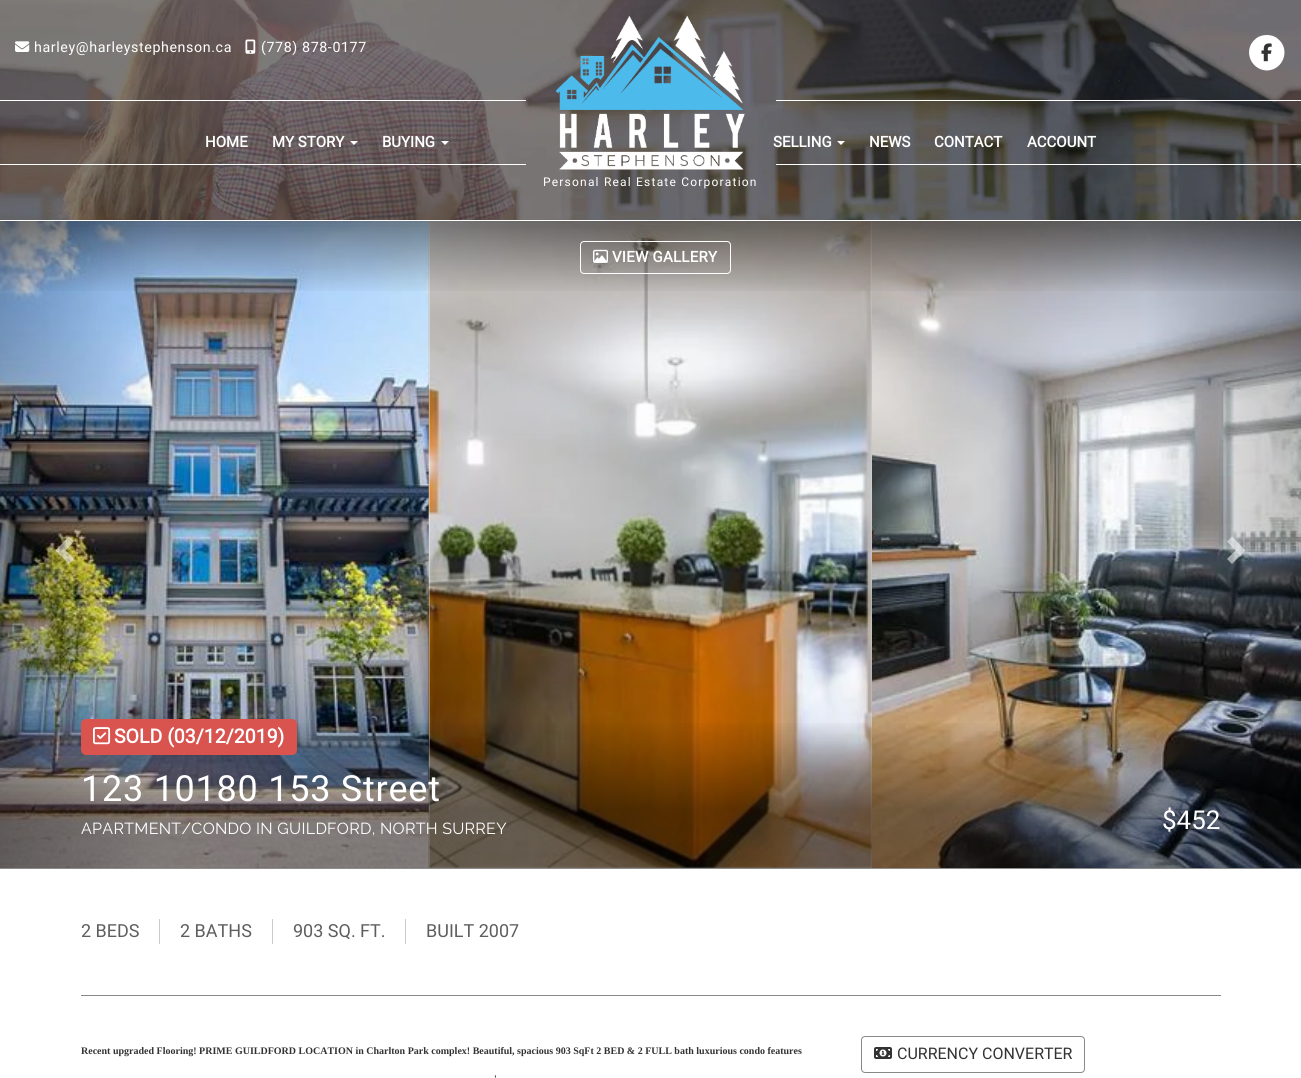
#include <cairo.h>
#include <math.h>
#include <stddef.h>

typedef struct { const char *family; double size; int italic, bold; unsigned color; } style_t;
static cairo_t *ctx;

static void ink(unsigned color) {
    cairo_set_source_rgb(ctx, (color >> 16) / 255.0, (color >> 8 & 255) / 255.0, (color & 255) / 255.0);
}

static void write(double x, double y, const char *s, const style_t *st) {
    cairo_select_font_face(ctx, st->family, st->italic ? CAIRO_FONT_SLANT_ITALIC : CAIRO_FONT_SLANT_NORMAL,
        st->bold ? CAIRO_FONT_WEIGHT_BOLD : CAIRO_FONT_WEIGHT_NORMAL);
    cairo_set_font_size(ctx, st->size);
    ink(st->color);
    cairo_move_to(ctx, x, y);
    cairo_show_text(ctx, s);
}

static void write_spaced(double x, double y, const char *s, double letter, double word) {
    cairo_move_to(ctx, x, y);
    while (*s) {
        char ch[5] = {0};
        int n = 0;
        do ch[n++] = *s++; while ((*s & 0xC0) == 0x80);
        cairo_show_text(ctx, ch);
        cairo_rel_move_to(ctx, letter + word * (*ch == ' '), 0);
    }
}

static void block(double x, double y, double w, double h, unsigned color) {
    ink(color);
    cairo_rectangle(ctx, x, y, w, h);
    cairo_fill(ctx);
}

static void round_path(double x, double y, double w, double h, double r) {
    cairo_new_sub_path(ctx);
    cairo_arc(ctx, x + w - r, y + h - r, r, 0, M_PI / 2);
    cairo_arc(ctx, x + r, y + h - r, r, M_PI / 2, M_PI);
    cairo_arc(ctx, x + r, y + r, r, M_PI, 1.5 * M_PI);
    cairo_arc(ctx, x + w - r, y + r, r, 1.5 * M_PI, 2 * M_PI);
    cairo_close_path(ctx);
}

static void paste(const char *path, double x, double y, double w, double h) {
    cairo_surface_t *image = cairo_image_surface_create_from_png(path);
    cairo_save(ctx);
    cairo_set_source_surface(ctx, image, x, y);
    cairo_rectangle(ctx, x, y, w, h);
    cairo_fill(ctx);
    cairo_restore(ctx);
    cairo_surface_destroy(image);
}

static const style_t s1 = {"Heebo", 15, 0, 1, 0xffffff};
static const style_t s2 = {"Heebo", 19.5, 0, 1, 0xffffff};
static const style_t s3 = {"Heebo", 26, 0, 0, 0xffffff};
static const style_t s4 = {"Heebo", 18, 0, 0, 0x5e5e5e};
static const style_t s5 = {"Liberation Serif", 10, 0, 1, 0x333333};
static const style_t s6 = {"Heebo", 16, 0, 0, 0x333333};

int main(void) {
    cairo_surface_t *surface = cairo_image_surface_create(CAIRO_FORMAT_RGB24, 1301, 1078);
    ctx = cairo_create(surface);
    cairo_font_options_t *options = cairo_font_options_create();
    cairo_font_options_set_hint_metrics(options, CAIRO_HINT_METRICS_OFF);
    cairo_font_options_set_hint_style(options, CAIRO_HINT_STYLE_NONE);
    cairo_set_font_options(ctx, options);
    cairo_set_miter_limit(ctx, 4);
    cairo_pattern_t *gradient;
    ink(0xffffff);
    cairo_paint(ctx);
    paste("pic1.png", 0, 0, 1301, 220);
    paste("pic2.png", 15, 41, 15, 11);
    cairo_select_font_face(ctx, "Heebo", CAIRO_FONT_SLANT_NORMAL, CAIRO_FONT_WEIGHT_NORMAL);
    cairo_set_font_size(ctx, 14.25);
    ink(0xffffff);
    write_spaced(34, 52, "harley@harleystephenson.ca", 0.6, 0);
    paste("pic3.png", 245, 39, 11, 15);
    write_spaced(261, 52, "(778) 878-0177", 0.6, 0);
    cairo_new_path(ctx);
    cairo_move_to(ctx, 1267, 70.5);
    cairo_curve_to(ctx, 1283.5, 70, 1291, 49, 1277.5, 38.5);
    cairo_curve_to(ctx, 1274.5, 36, 1270.5, 35, 1267, 35);
    cairo_curve_to(ctx, 1263, 35, 1259, 36, 1256, 38.5);
    cairo_curve_to(ctx, 1242.5, 49, 1250, 70, 1267, 70.5);
    cairo_close_path(ctx);
    cairo_fill(ctx);
    paste("pic4.png", 1261, 43, 11, 19);
    write(205, 147, "HOME", &s1);
    write(272, 147, "MY STORY", &s1);
    cairo_new_path(ctx);
    cairo_move_to(ctx, 350, 141);
    cairo_line_to(ctx, 358, 141);
    cairo_line_to(ctx, 354, 145);
    cairo_close_path(ctx);
    cairo_fill(ctx);
    write(382, 147, "BUYING", &s1);
    cairo_new_path(ctx);
    cairo_move_to(ctx, 441, 141);
    cairo_line_to(ctx, 449, 141);
    cairo_line_to(ctx, 445, 145);
    cairo_close_path(ctx);
    cairo_fill(ctx);
    write(773, 147, "SELLING", &s1);
    cairo_new_path(ctx);
    cairo_move_to(ctx, 837, 141);
    cairo_line_to(ctx, 845, 141);
    cairo_line_to(ctx, 841, 145);
    cairo_close_path(ctx);
    cairo_fill(ctx);
    write(869, 147, "NEWS", &s1);
    write(934, 147, "CONTACT", &s1);
    write(1027, 147, "ACCOUNT", &s1);
    block(0, 100, 526, 1, 0xffffff);
    block(0, 164, 526, 1, 0xffffff);
    block(776, 100, 525, 1, 0xffffff);
    block(776, 164, 525, 1, 0xffffff);
    paste("pic5.png", 555, 15, 190, 155);
    cairo_select_font_face(ctx, "Heebo", CAIRO_FONT_SLANT_NORMAL, CAIRO_FONT_WEIGHT_NORMAL);
    cairo_set_font_size(ctx, 12);
    write_spaced(543, 186, "Personal Real Estate Corporation", 1.2, 0);
    block(429, 221, 443, 647, 0xf5f5f5);
    paste("pic6.png", 0, 221, 429, 647);
    paste("pic7.png", 428, 221, 444, 647);
    paste("pic8.png", 872, 221, 429, 647);
    gradient = cairo_pattern_create_linear(651, 221, 651, 295);
    cairo_pattern_add_color_stop_rgba(gradient, 0, 0, 0, 0, 0.45);
    cairo_pattern_add_color_stop_rgba(gradient, 1, 0, 0, 0, 0);
    cairo_set_source(ctx, gradient);
    cairo_pattern_destroy(gradient);
    cairo_rectangle(ctx, 0, 221, 1301, 70);
    cairo_fill(ctx);
    round_path(580.5, 241.5, 150, 32, 3.5);
    ink(0xffffff);
    cairo_set_line_width(ctx, 1);
    cairo_stroke(ctx);
    paste("pic9.png", 593, 249, 15, 14);
    cairo_select_font_face(ctx, "Heebo", CAIRO_FONT_SLANT_NORMAL, CAIRO_FONT_WEIGHT_BOLD);
    cairo_set_font_size(ctx, 15);
    write_spaced(612, 262, "VIEW GALLERY", 0.25, 0);
    cairo_set_source_rgba(ctx, 1, 1, 1, 0.5);
    cairo_new_path(ctx);
    cairo_move_to(ctx, 74, 541.5);
    cairo_line_to(ctx, 65.5, 550.5);
    cairo_line_to(ctx, 74, 559);
    cairo_line_to(ctx, 69, 564);
    cairo_line_to(ctx, 55.5, 550.5);
    cairo_line_to(ctx, 69, 536.5);
    cairo_close_path(ctx);
    cairo_fill(ctx);
    cairo_new_path(ctx);
    cairo_move_to(ctx, 1245.5, 550.5);
    cairo_line_to(ctx, 1232, 564);
    cairo_line_to(ctx, 1227, 559);
    cairo_line_to(ctx, 1235.5, 550.5);
    cairo_line_to(ctx, 1227, 541.5);
    cairo_line_to(ctx, 1232, 536.5);
    cairo_close_path(ctx);
    cairo_fill(ctx);
    gradient = cairo_pattern_create_linear(651, 719, 651, 869);
    cairo_pattern_add_color_stop_rgba(gradient, 0, 0, 0, 0, 0);
    cairo_pattern_add_color_stop_rgba(gradient, 0.6, 0, 0, 0, 0.45);
    cairo_set_source(ctx, gradient);
    cairo_pattern_destroy(gradient);
    cairo_rectangle(ctx, 0, 723, 1301, 146);
    cairo_fill(ctx);
    ink(0xd9534f);
    round_path(81, 719, 216, 36, 5);
    cairo_fill(ctx);
    paste("pic10.png", 93, 727, 18, 18);
    write(114, 743, "SOLD (03/12/2019)", &s2);
    cairo_select_font_face(ctx, "Heebo", CAIRO_FONT_SLANT_NORMAL, CAIRO_FONT_WEIGHT_NORMAL);
    cairo_set_font_size(ctx, 36);
    write_spaced(81, 801, "123 10180 153 Street", 0.75, 0);
    cairo_select_font_face(ctx, "Raleway", CAIRO_FONT_SLANT_NORMAL, CAIRO_FONT_WEIGHT_NORMAL);
    cairo_set_font_size(ctx, 16);
    write_spaced(81, 834, "APARTMENT/CONDO IN GUILDFORD, NORTH SURREY", 0.3, 0);
    write(1162, 829, "$452", &s3);
    block(81, 995, 1140, 1, 0x888888);
    block(159, 919, 1, 25, 0xcccccc);
    write(81, 937, "2 BEDS", &s4);
    block(272, 919, 1, 25, 0xcccccc);
    write(180, 937, "2 BATHS", &s4);
    block(405, 919, 1, 25, 0xcccccc);
    write(293, 937, "903 SQ. FT.", &s4);
    write(426, 937, "BUILT 2007", &s4);
    write(81, 1054, "Recent upgraded Flooring! PRIME GUILDFORD LOCATION in Charlton Park complex! Beautiful, spacious 903 SqFt 2 BED & 2 FULL bath luxurious condo features", &s5);
    write(494, 1082, "'", &s5);
    round_path(861.5, 1036.5, 223, 36, 3.5);
    ink(0x888888);
    cairo_stroke(ctx);
    paste("pic11.png", 874, 1047, 18, 12);
    write(897, 1059, "CURRENCY CONVERTER", &s6);
    cairo_surface_write_to_png(surface, "screenshot.png");
    cairo_font_options_destroy(options);
    cairo_destroy(ctx);
    cairo_surface_destroy(surface);
    return 0;
}
